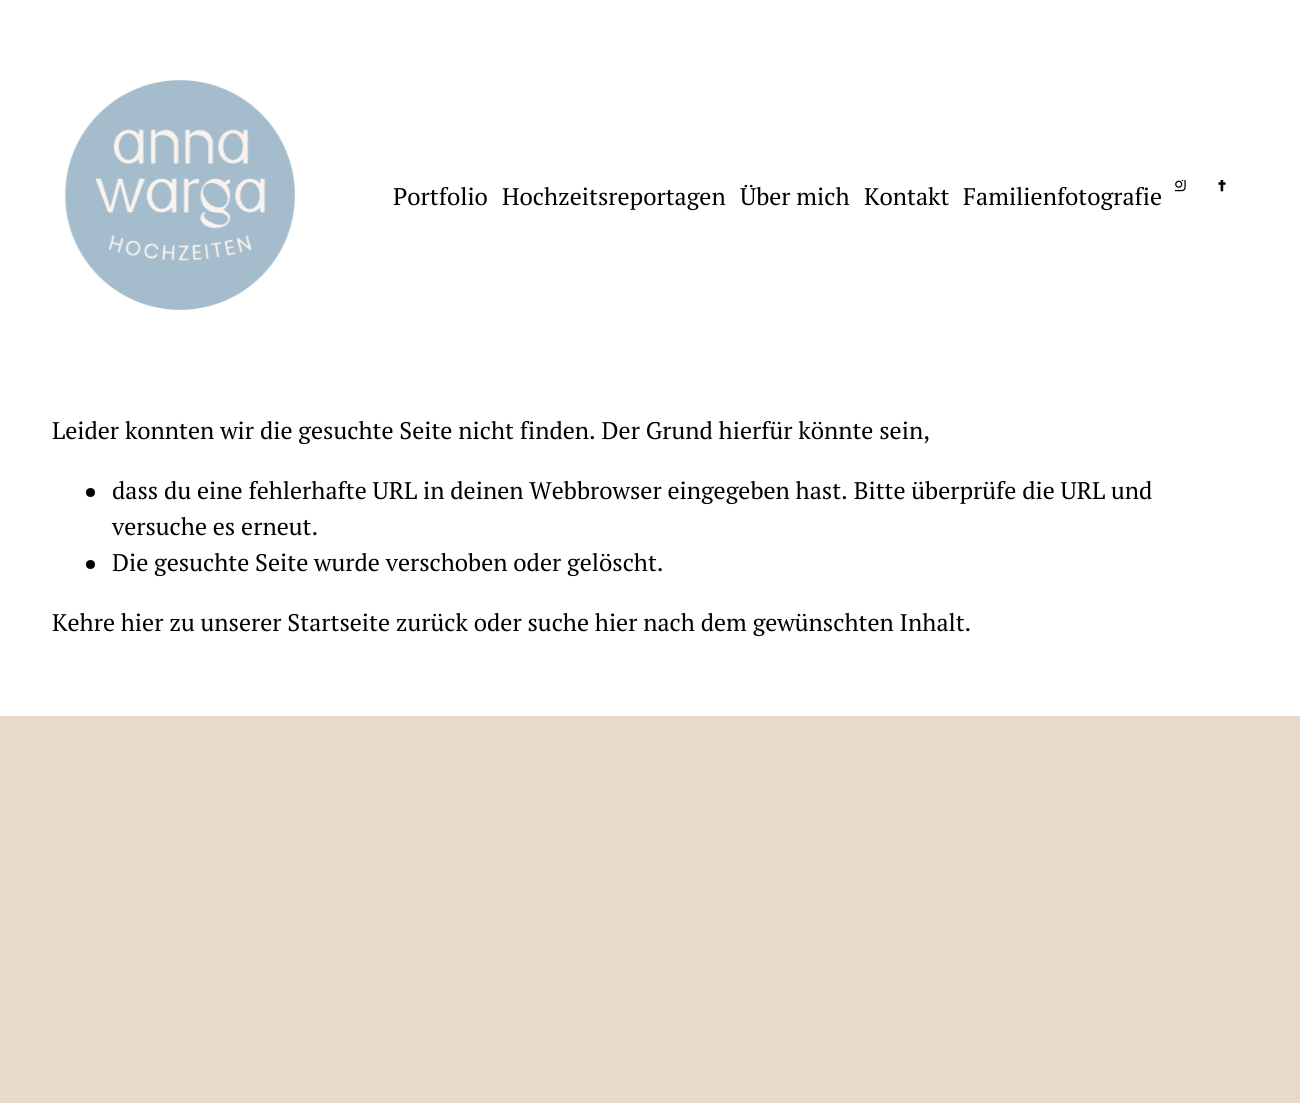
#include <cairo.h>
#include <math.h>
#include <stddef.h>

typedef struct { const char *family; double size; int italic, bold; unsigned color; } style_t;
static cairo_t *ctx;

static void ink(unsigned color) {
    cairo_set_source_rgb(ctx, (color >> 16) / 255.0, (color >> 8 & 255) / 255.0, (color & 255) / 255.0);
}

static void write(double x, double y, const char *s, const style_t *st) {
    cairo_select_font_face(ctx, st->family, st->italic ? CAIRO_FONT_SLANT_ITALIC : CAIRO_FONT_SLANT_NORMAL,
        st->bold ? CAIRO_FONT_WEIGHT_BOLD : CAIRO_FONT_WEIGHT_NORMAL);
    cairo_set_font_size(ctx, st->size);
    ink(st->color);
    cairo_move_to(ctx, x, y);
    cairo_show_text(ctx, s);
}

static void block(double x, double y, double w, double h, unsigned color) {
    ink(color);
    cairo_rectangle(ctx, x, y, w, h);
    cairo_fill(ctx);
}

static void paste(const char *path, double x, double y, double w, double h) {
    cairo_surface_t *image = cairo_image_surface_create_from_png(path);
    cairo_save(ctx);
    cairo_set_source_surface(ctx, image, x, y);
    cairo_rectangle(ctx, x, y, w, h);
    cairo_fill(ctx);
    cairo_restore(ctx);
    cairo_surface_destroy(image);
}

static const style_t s1 = {"PT Serif", 24, 0, 0, 0x000000};

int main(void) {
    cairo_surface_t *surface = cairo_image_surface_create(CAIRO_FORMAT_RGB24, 1300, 1103);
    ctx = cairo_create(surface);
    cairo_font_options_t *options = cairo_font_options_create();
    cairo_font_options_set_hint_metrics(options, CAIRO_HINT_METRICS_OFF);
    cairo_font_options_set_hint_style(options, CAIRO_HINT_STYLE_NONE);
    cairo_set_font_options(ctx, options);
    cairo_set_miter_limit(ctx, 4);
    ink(0xffffff);
    cairo_paint(ctx);
    paste("pic1.png", 64, 80, 231, 230);
    write(393, 205, "Portfolio", &s1);
    write(502, 205, "Hochzeitsreportagen", &s1);
    write(740, 205, "Über mich", &s1);
    write(864, 205, "Kontakt", &s1);
    write(963, 205, "Familienfotografie", &s1);
    paste("pic2.png", 1175, 180, 11, 12);
    paste("pic3.png", 1218, 180, 8, 12);
    write(52, 439, "Leider konnten wir die gesuchte Seite nicht finden. Der Grund hierfür könnte sein,", &s1);
    cairo_new_path(ctx);
    cairo_arc(ctx, 90.5, 492.5, 4.5, 0, 2 * M_PI);
    cairo_fill(ctx);
    write(112, 499, "dass du eine fehlerhafte URL in deinen Webbrowser eingegeben hast. Bitte überprüfe die URL und", &s1);
    write(112, 535, "versuche es erneut.", &s1);
    cairo_new_path(ctx);
    cairo_arc(ctx, 90.5, 564.5, 4.5, 0, 2 * M_PI);
    cairo_fill(ctx);
    write(112, 571, "Die gesuchte Seite wurde verschoben oder gelöscht.", &s1);
    write(52, 631, "Kehre hier zu unserer Startseite zurück oder suche hier nach dem gewünschten Inhalt.", &s1);
    block(0, 716, 1300, 387, 0xe7d9cb);
    cairo_surface_write_to_png(surface, "screenshot.png");
    cairo_font_options_destroy(options);
    cairo_destroy(ctx);
    cairo_surface_destroy(surface);
    return 0;
}
